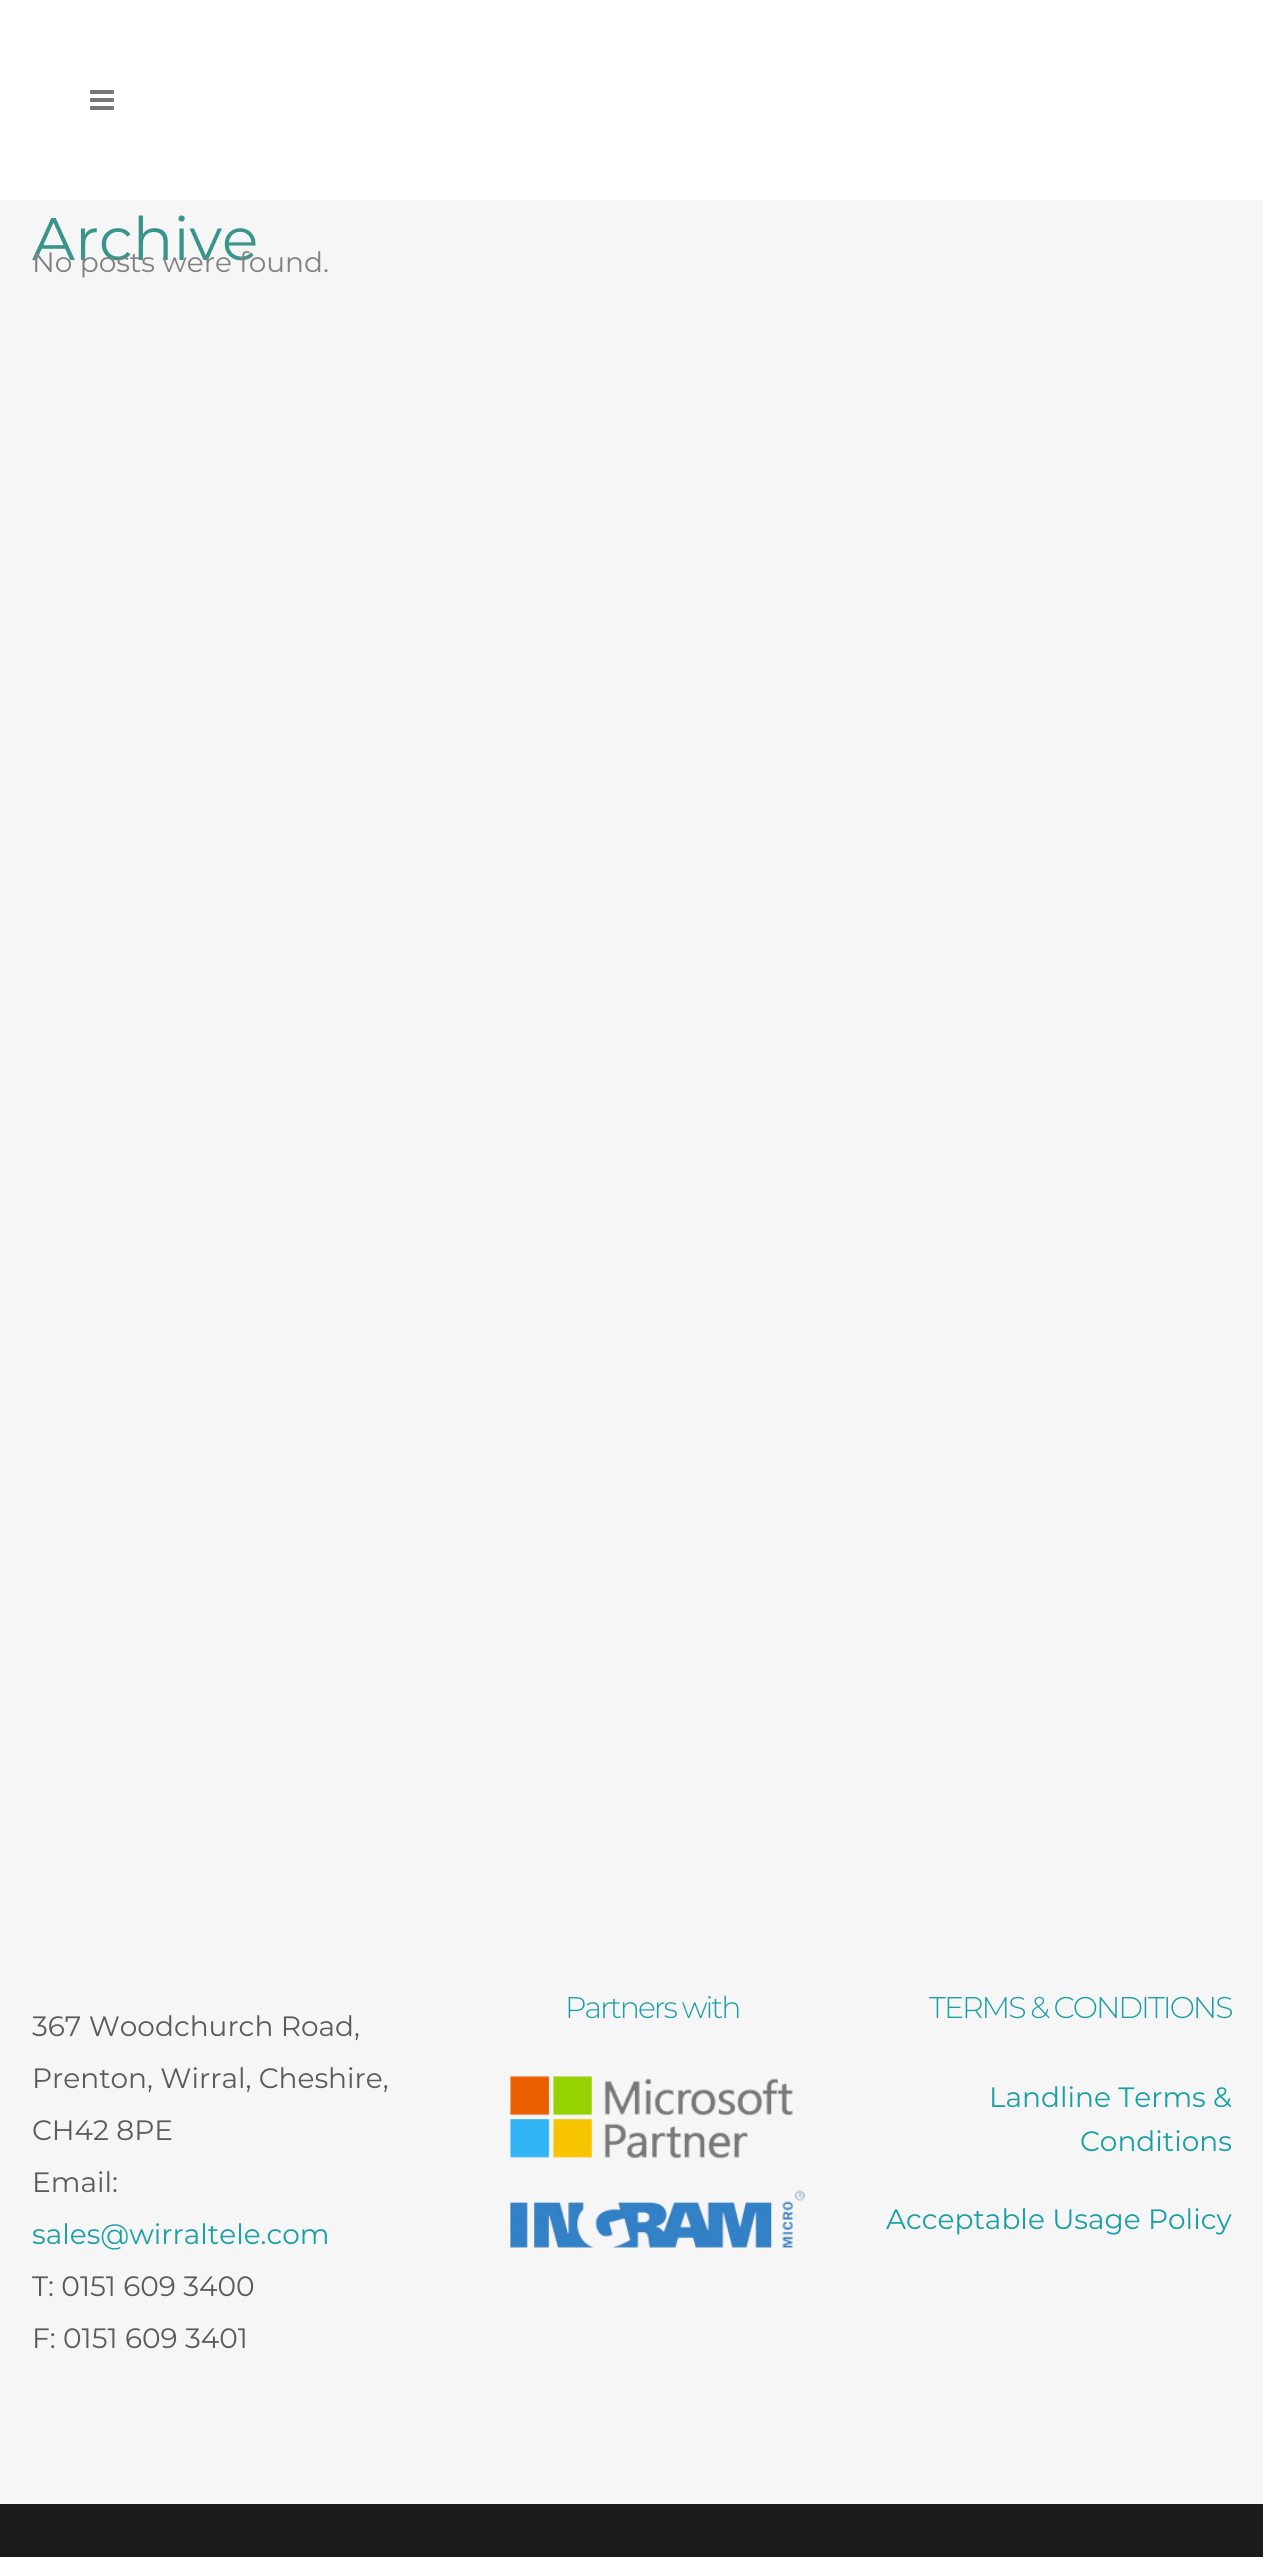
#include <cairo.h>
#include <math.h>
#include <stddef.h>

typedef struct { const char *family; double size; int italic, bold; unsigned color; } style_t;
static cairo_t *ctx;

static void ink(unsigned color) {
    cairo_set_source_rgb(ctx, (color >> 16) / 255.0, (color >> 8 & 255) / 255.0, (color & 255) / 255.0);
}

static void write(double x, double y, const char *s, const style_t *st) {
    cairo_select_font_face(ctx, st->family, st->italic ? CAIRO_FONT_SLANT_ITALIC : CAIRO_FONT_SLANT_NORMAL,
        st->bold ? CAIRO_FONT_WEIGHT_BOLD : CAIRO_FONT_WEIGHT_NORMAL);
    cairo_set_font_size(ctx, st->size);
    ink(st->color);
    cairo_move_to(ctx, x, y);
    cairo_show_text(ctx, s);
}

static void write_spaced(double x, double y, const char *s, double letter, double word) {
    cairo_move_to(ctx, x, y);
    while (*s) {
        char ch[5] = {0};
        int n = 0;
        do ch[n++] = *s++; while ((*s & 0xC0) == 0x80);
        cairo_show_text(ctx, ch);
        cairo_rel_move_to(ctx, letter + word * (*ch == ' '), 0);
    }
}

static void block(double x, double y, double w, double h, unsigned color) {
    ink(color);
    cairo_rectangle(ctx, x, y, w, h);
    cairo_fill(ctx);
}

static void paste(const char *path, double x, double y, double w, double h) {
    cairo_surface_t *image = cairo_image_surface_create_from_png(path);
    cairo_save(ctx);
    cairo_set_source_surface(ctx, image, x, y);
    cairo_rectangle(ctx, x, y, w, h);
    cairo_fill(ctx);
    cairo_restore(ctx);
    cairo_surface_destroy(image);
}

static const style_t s1 = {"Montserrat", 60, 0, 0, 0x39948b};
static const style_t s2 = {"Montserrat", 28, 0, 0, 0x818181};
static const style_t s3 = {"Montserrat", 28, 0, 0, 0x5b5b5b};
static const style_t s4 = {"Montserrat", 28, 0, 0, 0x1b9fa7};

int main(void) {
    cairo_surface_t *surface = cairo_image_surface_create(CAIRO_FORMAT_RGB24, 1263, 2557);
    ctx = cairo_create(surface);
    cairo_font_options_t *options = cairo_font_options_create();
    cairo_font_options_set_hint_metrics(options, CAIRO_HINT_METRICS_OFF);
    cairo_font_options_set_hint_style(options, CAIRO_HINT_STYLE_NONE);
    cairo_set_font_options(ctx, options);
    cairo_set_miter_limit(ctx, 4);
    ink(0xf6f6f6);
    cairo_paint(ctx);
    block(0, 0, 1263, 200, 0xffffff);
    paste("pic1.png", 90, 90, 24, 20);
    write(32, 260, "Archive", &s1);
    write(32, 272, "No posts were found.", &s2);
    write(32, 2036, "367 Woodchurch Road,", &s3);
    write(32, 2088, "Prenton, Wirral, Cheshire,", &s3);
    write(32, 2140, "CH42 8PE", &s3);
    write(32, 2192, "Email:", &s3);
    write(32, 2244, "sales@wirraltele.com", &s4);
    write(32, 2296, "T: 0151 609 3400", &s3);
    write(32, 2348, "F: 0151 609 3401", &s3);
    cairo_select_font_face(ctx, "Montserrat Light", CAIRO_FONT_SLANT_NORMAL, CAIRO_FONT_WEIGHT_NORMAL);
    cairo_set_font_size(ctx, 30);
    ink(0x1b9fa7);
    write_spaced(565, 2018, "Partners with", -2, 0);
    paste("pic2.png", 510, 2076, 296, 172);
    write_spaced(929, 2018, "TERMS & CONDITIONS", -2, 0);
    write(989, 2107, "Landline Terms &", &s4);
    write(1080, 2151, "Conditions", &s4);
    write(886, 2229, "Acceptable Usage Policy", &s4);
    block(0, 2504, 1263, 53, 0x1b1b1b);
    cairo_surface_write_to_png(surface, "screenshot.png");
    cairo_font_options_destroy(options);
    cairo_destroy(ctx);
    cairo_surface_destroy(surface);
    return 0;
}
